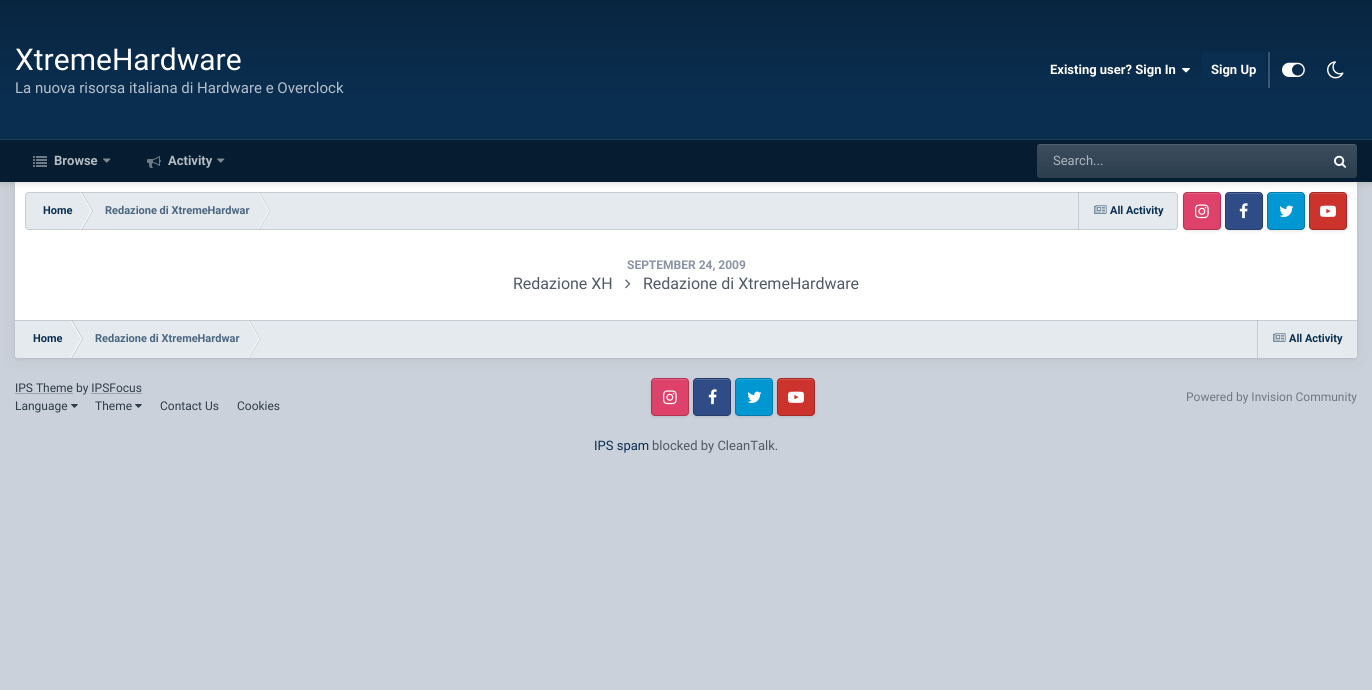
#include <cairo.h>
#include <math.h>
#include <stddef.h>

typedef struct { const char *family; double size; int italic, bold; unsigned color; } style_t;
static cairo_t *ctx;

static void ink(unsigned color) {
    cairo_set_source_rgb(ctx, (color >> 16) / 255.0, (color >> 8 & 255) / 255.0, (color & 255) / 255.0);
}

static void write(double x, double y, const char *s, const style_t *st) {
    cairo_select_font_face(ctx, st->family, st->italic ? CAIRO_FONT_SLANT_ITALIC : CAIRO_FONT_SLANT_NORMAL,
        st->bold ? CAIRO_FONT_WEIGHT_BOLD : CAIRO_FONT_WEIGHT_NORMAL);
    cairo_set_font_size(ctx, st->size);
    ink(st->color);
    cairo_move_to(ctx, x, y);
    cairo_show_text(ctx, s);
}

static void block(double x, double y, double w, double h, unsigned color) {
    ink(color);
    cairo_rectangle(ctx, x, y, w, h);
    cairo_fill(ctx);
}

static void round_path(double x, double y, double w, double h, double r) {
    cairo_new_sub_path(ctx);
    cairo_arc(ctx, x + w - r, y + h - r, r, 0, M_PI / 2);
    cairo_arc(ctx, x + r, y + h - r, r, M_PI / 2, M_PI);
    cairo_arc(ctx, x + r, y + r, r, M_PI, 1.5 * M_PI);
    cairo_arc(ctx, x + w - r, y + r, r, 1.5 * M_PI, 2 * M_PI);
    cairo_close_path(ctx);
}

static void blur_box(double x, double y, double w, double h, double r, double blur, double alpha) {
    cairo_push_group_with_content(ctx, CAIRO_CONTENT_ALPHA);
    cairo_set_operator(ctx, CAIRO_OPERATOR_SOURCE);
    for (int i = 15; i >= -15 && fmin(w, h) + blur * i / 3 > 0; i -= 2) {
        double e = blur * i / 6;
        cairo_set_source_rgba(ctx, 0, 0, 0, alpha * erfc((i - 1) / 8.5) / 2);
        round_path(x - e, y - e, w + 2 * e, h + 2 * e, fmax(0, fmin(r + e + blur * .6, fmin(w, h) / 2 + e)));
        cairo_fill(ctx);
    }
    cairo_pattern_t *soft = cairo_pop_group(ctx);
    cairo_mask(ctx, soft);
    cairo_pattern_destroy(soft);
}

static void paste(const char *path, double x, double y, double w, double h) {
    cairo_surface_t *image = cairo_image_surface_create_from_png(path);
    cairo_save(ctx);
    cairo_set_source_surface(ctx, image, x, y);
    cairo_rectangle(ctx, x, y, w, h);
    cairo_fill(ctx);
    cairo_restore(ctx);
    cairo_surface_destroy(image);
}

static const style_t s1 = {"Roboto", 30, 0, 0, 0xffffff};
static const style_t s2 = {"Roboto", 15, 0, 0, 0xb6c0ca};
static const style_t s3 = {"Roboto", 13, 0, 1, 0xffffff};
static const style_t s4 = {"Roboto", 13, 0, 1, 0xb4bbc1};
static const style_t s5 = {"Roboto", 13, 0, 0, 0xaeb5bb};
static const style_t s6 = {"Roboto", 11, 0, 1, 0x0a2e50};
static const style_t s7 = {"Roboto", 11, 0, 1, 0x4b667f};
static const style_t s8 = {"Roboto", 12, 0, 1, 0x8a93a4};
static const style_t s9 = {"Roboto", 16, 0, 0, 0x515963};
static const style_t s10 = {"Roboto", 12, 0, 0, 0x2e3d4a};
static const style_t s11 = {"Roboto", 12, 0, 0, 0x6d7884};
static const style_t s12 = {"Roboto", 13, 0, 0, 0x0a2e50};
static const style_t s13 = {"Roboto", 13, 0, 0, 0x515963};

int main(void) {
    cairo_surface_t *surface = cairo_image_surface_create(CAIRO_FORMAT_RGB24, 1372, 690);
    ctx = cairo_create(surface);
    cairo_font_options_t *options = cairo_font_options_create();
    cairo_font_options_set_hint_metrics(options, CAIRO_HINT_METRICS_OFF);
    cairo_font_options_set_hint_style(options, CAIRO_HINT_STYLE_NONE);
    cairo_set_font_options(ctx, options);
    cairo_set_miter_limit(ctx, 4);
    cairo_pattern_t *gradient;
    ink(0xcbd1da);
    cairo_paint(ctx);
    gradient = cairo_pattern_create_linear(686, 0, 686, 140);
    cairo_pattern_add_color_stop_rgba(gradient, 0, 0.031, 0.145, 0.251, 1);
    cairo_pattern_add_color_stop_rgba(gradient, 0.7, 0.039, 0.18, 0.314, 1);
    cairo_set_source(ctx, gradient);
    cairo_pattern_destroy(gradient);
    cairo_rectangle(ctx, 0, 0, 1372, 139);
    cairo_fill(ctx);
    write(15, 70, "XtremeHardware", &s1);
    write(15, 93, "La nuova risorsa italiana di Hardware e Overclock", &s2);
    write(1050, 74, "Existing user? Sign In", &s3);
    paste("pic1.png", 1182, 68, 8, 5);
    ink(0x0a2e50);
    round_path(1201, 52, 65, 36, 4);
    cairo_fill(ctx);
    write(1211, 74, "Sign Up", &s3);
    cairo_set_source_rgba(ctx, 1, 1, 1, 0.2);
    cairo_rectangle(ctx, 1268, 52, 2, 36);
    cairo_fill(ctx);
    paste("pic2.png", 1282, 62, 23, 15);
    paste("pic3.png", 1327, 61, 17, 18);
    ink(0x000000);
    blur_box(15, 183, 1342, 176, 3, 1.5, 0.08);
    blur_box(15, 182, 1342, 176, 3, 10, 0.06);
    ink(0xffffff);
    cairo_new_path(ctx);
    cairo_move_to(ctx, 15, 182);
    cairo_line_to(ctx, 1357, 182);
    cairo_line_to(ctx, 1357, 355);
    cairo_curve_to(ctx, 1357, 356.5, 1355.5, 358, 1354, 358);
    cairo_line_to(ctx, 18, 358);
    cairo_curve_to(ctx, 16.5, 358, 15, 356.5, 15, 355);
    cairo_close_path(ctx);
    cairo_fill(ctx);
    ink(0xe4eaee);
    round_path(25, 192, 1153, 38, 4);
    cairo_fill(ctx);
    ink(0xffffff);
    cairo_new_path(ctx);
    cairo_move_to(ctx, 80, 192);
    cairo_line_to(ctx, 81, 192);
    cairo_line_to(ctx, 92, 211);
    cairo_line_to(ctx, 91, 211);
    cairo_close_path(ctx);
    cairo_fill(ctx);
    cairo_set_source_rgba(ctx, 0.318, 0.349, 0.388, 0.2);
    cairo_new_path(ctx);
    cairo_move_to(ctx, 81, 192);
    cairo_line_to(ctx, 82, 192);
    cairo_line_to(ctx, 93, 211);
    cairo_line_to(ctx, 92, 211);
    cairo_close_path(ctx);
    cairo_fill(ctx);
    ink(0xffffff);
    cairo_new_path(ctx);
    cairo_move_to(ctx, 80, 230);
    cairo_line_to(ctx, 81, 230);
    cairo_line_to(ctx, 92, 211);
    cairo_line_to(ctx, 91, 211);
    cairo_close_path(ctx);
    cairo_fill(ctx);
    cairo_set_source_rgba(ctx, 0.318, 0.349, 0.388, 0.2);
    cairo_new_path(ctx);
    cairo_move_to(ctx, 81, 230);
    cairo_line_to(ctx, 82, 230);
    cairo_line_to(ctx, 93, 211);
    cairo_line_to(ctx, 92, 211);
    cairo_close_path(ctx);
    cairo_fill(ctx);
    ink(0xf7f9fa);
    cairo_new_path(ctx);
    cairo_move_to(ctx, 257.5, 192);
    cairo_line_to(ctx, 258.5, 192);
    cairo_line_to(ctx, 269.5, 211);
    cairo_line_to(ctx, 268.5, 211);
    cairo_close_path(ctx);
    cairo_fill(ctx);
    cairo_set_source_rgba(ctx, 0.49, 0.522, 0.553, 0.2);
    cairo_new_path(ctx);
    cairo_move_to(ctx, 258.5, 192);
    cairo_line_to(ctx, 259.5, 192);
    cairo_line_to(ctx, 270.5, 211);
    cairo_line_to(ctx, 269.5, 211);
    cairo_close_path(ctx);
    cairo_fill(ctx);
    ink(0xf7f9fa);
    cairo_new_path(ctx);
    cairo_move_to(ctx, 257.5, 230);
    cairo_line_to(ctx, 258.5, 230);
    cairo_line_to(ctx, 269.5, 211);
    cairo_line_to(ctx, 268.5, 211);
    cairo_close_path(ctx);
    cairo_fill(ctx);
    cairo_set_source_rgba(ctx, 0.49, 0.522, 0.553, 0.2);
    cairo_new_path(ctx);
    cairo_move_to(ctx, 258.5, 230);
    cairo_line_to(ctx, 259.5, 230);
    cairo_line_to(ctx, 270.5, 211);
    cairo_line_to(ctx, 269.5, 211);
    cairo_close_path(ctx);
    cairo_fill(ctx);
    block(1078, 192, 1, 38, 0xc7cdd2);
    paste("pic8.png", 1094, 205, 13, 9);
    round_path(25.5, 192.5, 1152, 37, 3.5);
    cairo_set_source_rgba(ctx, 0.318, 0.349, 0.388, 0.2);
    cairo_set_line_width(ctx, 1);
    cairo_stroke(ctx);
    ink(0x000000);
    blur_box(1183, 193, 38, 38, 4, 1.5, 0.1);
    ink(0xde416a);
    round_path(1183, 192, 38, 38, 4);
    cairo_fill(ctx);
    ink(0xe35e80);
    cairo_new_path(ctx);
    cairo_move_to(ctx, 1187, 194);
    cairo_curve_to(ctx, 1185, 194, 1184, 195, 1184, 197);
    cairo_curve_to(ctx, 1184, 192, 1188, 193, 1192, 193);
    cairo_line_to(ctx, 1212, 193);
    cairo_curve_to(ctx, 1216, 193, 1220, 192, 1220, 197);
    cairo_curve_to(ctx, 1220, 195, 1219, 194, 1217, 194);
    cairo_close_path(ctx);
    cairo_fill(ctx);
    paste("pic9.png", 1195, 204, 14, 15);
    round_path(1183.5, 192.5, 37, 37, 3.5);
    cairo_set_source_rgba(ctx, 0, 0, 0, 0.2);
    cairo_stroke(ctx);
    ink(0x000000);
    blur_box(1225, 193, 38, 38, 4, 1.5, 0.1);
    ink(0x304c87);
    round_path(1225, 192, 38, 38, 4);
    cairo_fill(ctx);
    ink(0x4f6799);
    cairo_new_path(ctx);
    cairo_move_to(ctx, 1229, 194);
    cairo_curve_to(ctx, 1227, 194, 1226, 195, 1226, 197);
    cairo_curve_to(ctx, 1226, 192, 1230, 193, 1234, 193);
    cairo_line_to(ctx, 1254, 193);
    cairo_curve_to(ctx, 1258, 193, 1262, 192, 1262, 197);
    cairo_curve_to(ctx, 1262, 195, 1261, 194, 1259, 194);
    cairo_close_path(ctx);
    cairo_fill(ctx);
    paste("pic10.png", 1239, 203, 9, 16);
    round_path(1225.5, 192.5, 37, 37, 3.5);
    cairo_set_source_rgba(ctx, 0, 0, 0, 0.2);
    cairo_stroke(ctx);
    ink(0x000000);
    blur_box(1267, 193, 38, 38, 4, 1.5, 0.1);
    ink(0x0097d3);
    round_path(1267, 192, 38, 38, 4);
    cairo_fill(ctx);
    ink(0x26a7da);
    cairo_new_path(ctx);
    cairo_move_to(ctx, 1271, 194);
    cairo_curve_to(ctx, 1269, 194, 1268, 195, 1268, 197);
    cairo_curve_to(ctx, 1268, 192, 1272, 193, 1276, 193);
    cairo_line_to(ctx, 1296, 193);
    cairo_curve_to(ctx, 1300, 193, 1304, 192, 1304, 197);
    cairo_curve_to(ctx, 1304, 195, 1303, 194, 1301, 194);
    cairo_close_path(ctx);
    cairo_fill(ctx);
    paste("pic11.png", 1279, 205, 15, 12);
    round_path(1267.5, 192.5, 37, 37, 3.5);
    cairo_set_source_rgba(ctx, 0, 0, 0, 0.2);
    cairo_stroke(ctx);
    ink(0x000000);
    blur_box(1309, 193, 38, 38, 4, 1.5, 0.1);
    ink(0xcc332d);
    round_path(1309, 192, 38, 38, 4);
    cairo_fill(ctx);
    ink(0xd4524d);
    cairo_new_path(ctx);
    cairo_move_to(ctx, 1313, 194);
    cairo_curve_to(ctx, 1311, 194, 1310, 195, 1310, 197);
    cairo_curve_to(ctx, 1310, 192, 1314, 193, 1318, 193);
    cairo_line_to(ctx, 1338, 193);
    cairo_curve_to(ctx, 1342, 193, 1346, 192, 1346, 197);
    cairo_curve_to(ctx, 1346, 195, 1345, 194, 1343, 194);
    cairo_close_path(ctx);
    cairo_fill(ctx);
    paste("pic12.png", 1320, 205, 16, 12);
    round_path(1309.5, 192.5, 37, 37, 3.5);
    cairo_set_source_rgba(ctx, 0, 0, 0, 0.2);
    cairo_stroke(ctx);
    ink(0x000000);
    blur_box(0, 141, 1372, 42, 0, 3.5, 0.15);
    block(0, 139, 1372, 1, 0x1d3d5a);
    block(0, 140, 1372, 42, 0x061c30);
    paste("pic4.png", 33, 156, 14, 11);
    write(54, 165, "Browse", &s4);
    paste("pic5.png", 103, 158, 8, 5);
    paste("pic6.png", 147, 156, 14, 12);
    write(168, 165, "Activity", &s4);
    paste("pic5.png", 217, 158, 8, 5);
    ink(0x2b3e4f);
    round_path(1037, 144, 320, 34, 3);
    cairo_fill(ctx);
    gradient = cairo_pattern_create_linear(1197, 144, 1197, 178);
    cairo_pattern_add_color_stop_rgba(gradient, 0, 1, 1, 1, 0.08);
    cairo_pattern_add_color_stop_rgba(gradient, 1, 1, 1, 1, 0);
    cairo_set_source(ctx, gradient);
    cairo_pattern_destroy(gradient);
    round_path(1037, 144, 320, 34, 3);
    cairo_fill(ctx);
    cairo_set_source_rgba(ctx, 1, 1, 1, 0.1);
    cairo_new_path(ctx);
    cairo_move_to(ctx, 1040, 145);
    cairo_line_to(ctx, 1354, 145);
    cairo_curve_to(ctx, 1356, 145, 1357, 146, 1357, 148);
    cairo_line_to(ctx, 1356, 145);
    cairo_line_to(ctx, 1355, 144);
    cairo_line_to(ctx, 1040, 144);
    cairo_curve_to(ctx, 1038, 144, 1037, 146, 1037, 148);
    cairo_curve_to(ctx, 1037, 146, 1038, 145, 1040, 145);
    cairo_close_path(ctx);
    cairo_fill(ctx);
    write(1053, 165, "Search...", &s5);
    paste("pic7.png", 1334, 155, 12, 13);
    write(43, 214, "Home", &s6);
    write(105, 214, "Redazione di XtremeHardwar", &s7);
    write(1110, 214, "All Activity", &s6);
    write(627, 269, "SEPTEMBER 24, 2009", &s8);
    write(513, 289, "Redazione XH", &s9);
    paste("pic13.png", 625, 279, 6, 10);
    write(643, 289, "Redazione di XtremeHardware", &s9);
    ink(0xe4eaee);
    cairo_new_path(ctx);
    cairo_move_to(ctx, 15, 320);
    cairo_line_to(ctx, 1357, 320);
    cairo_line_to(ctx, 1357, 355);
    cairo_curve_to(ctx, 1357, 356.5, 1355.5, 358, 1354, 358);
    cairo_line_to(ctx, 18, 358);
    cairo_curve_to(ctx, 16.5, 358, 15, 356.5, 15, 355);
    cairo_close_path(ctx);
    cairo_fill(ctx);
    ink(0xffffff);
    cairo_new_path(ctx);
    cairo_move_to(ctx, 70, 320);
    cairo_line_to(ctx, 71, 320);
    cairo_line_to(ctx, 82, 339);
    cairo_line_to(ctx, 81, 339);
    cairo_close_path(ctx);
    cairo_fill(ctx);
    cairo_set_source_rgba(ctx, 0.318, 0.349, 0.388, 0.2);
    cairo_new_path(ctx);
    cairo_move_to(ctx, 71, 320);
    cairo_line_to(ctx, 72, 320);
    cairo_line_to(ctx, 83, 339);
    cairo_line_to(ctx, 82, 339);
    cairo_close_path(ctx);
    cairo_fill(ctx);
    ink(0xf7f9fa);
    cairo_new_path(ctx);
    cairo_move_to(ctx, 247.5, 320);
    cairo_line_to(ctx, 248.5, 320);
    cairo_line_to(ctx, 259.5, 339);
    cairo_line_to(ctx, 258.5, 339);
    cairo_close_path(ctx);
    cairo_fill(ctx);
    cairo_set_source_rgba(ctx, 0.49, 0.522, 0.553, 0.2);
    cairo_new_path(ctx);
    cairo_move_to(ctx, 248.5, 320);
    cairo_line_to(ctx, 249.5, 320);
    cairo_line_to(ctx, 260.5, 339);
    cairo_line_to(ctx, 259.5, 339);
    cairo_close_path(ctx);
    cairo_fill(ctx);
    block(1257, 320, 1, 38, 0xc7cdd2);
    cairo_set_source_rgba(ctx, 0.318, 0.349, 0.388, 0.2);
    cairo_rectangle(ctx, 15, 320, 1342, 1);
    cairo_fill(ctx);
    write(33, 342, "Home", &s6);
    ink(0xffffff);
    cairo_new_path(ctx);
    cairo_move_to(ctx, 70, 358);
    cairo_line_to(ctx, 71, 358);
    cairo_line_to(ctx, 82, 339);
    cairo_line_to(ctx, 81, 339);
    cairo_close_path(ctx);
    cairo_fill(ctx);
    cairo_set_source_rgba(ctx, 0.318, 0.349, 0.388, 0.2);
    cairo_new_path(ctx);
    cairo_move_to(ctx, 71, 358);
    cairo_line_to(ctx, 72, 358);
    cairo_line_to(ctx, 83, 339);
    cairo_line_to(ctx, 82, 339);
    cairo_close_path(ctx);
    cairo_fill(ctx);
    write(95, 342, "Redazione di XtremeHardwar", &s7);
    ink(0xf7f9fa);
    cairo_new_path(ctx);
    cairo_move_to(ctx, 247.5, 358);
    cairo_line_to(ctx, 248.5, 358);
    cairo_line_to(ctx, 259.5, 339);
    cairo_line_to(ctx, 258.5, 339);
    cairo_close_path(ctx);
    cairo_fill(ctx);
    cairo_set_source_rgba(ctx, 0.49, 0.522, 0.553, 0.2);
    cairo_new_path(ctx);
    cairo_move_to(ctx, 248.5, 358);
    cairo_line_to(ctx, 249.5, 358);
    cairo_line_to(ctx, 260.5, 339);
    cairo_line_to(ctx, 259.5, 339);
    cairo_close_path(ctx);
    cairo_fill(ctx);
    paste("pic8.png", 1273, 333, 13, 9);
    write(1289, 342, "All Activity", &s6);
    block(15, 393, 58, 1, 0x9ca5af);
    write(15, 392, "IPS Theme by IPSFocus", &s10);
    block(91, 393, 51, 1, 0x9ca5af);
    write(15, 410, "Language", &s10);
    paste("pic14.png", 71, 404, 7, 4);
    write(95, 410, "Theme", &s10);
    paste("pic14.png", 135, 404, 7, 4);
    write(160, 410, "Contact Us", &s10);
    write(237, 410, "Cookies", &s10);
    ink(0x000000);
    blur_box(651, 379, 38, 38, 4, 1.5, 0.1);
    ink(0xde416a);
    round_path(651, 378, 38, 38, 4);
    cairo_fill(ctx);
    ink(0xe35e80);
    cairo_new_path(ctx);
    cairo_move_to(ctx, 655, 380);
    cairo_curve_to(ctx, 653, 380, 652, 381, 652, 383);
    cairo_curve_to(ctx, 652, 378, 656, 379, 660, 379);
    cairo_line_to(ctx, 680, 379);
    cairo_curve_to(ctx, 684, 379, 688, 378, 688, 383);
    cairo_curve_to(ctx, 688, 381, 687, 380, 685, 380);
    cairo_close_path(ctx);
    cairo_fill(ctx);
    paste("pic9.png", 663, 390, 14, 15);
    round_path(651.5, 378.5, 37, 37, 3.5);
    cairo_set_source_rgba(ctx, 0, 0, 0, 0.2);
    cairo_stroke(ctx);
    ink(0x000000);
    blur_box(693, 379, 38, 38, 4, 1.5, 0.1);
    ink(0x304c87);
    round_path(693, 378, 38, 38, 4);
    cairo_fill(ctx);
    ink(0x4f6799);
    cairo_new_path(ctx);
    cairo_move_to(ctx, 697, 380);
    cairo_curve_to(ctx, 695, 380, 694, 381, 694, 383);
    cairo_curve_to(ctx, 694, 378, 698, 379, 702, 379);
    cairo_line_to(ctx, 722, 379);
    cairo_curve_to(ctx, 726, 379, 730, 378, 730, 383);
    cairo_curve_to(ctx, 730, 381, 729, 380, 727, 380);
    cairo_close_path(ctx);
    cairo_fill(ctx);
    paste("pic10.png", 708, 389, 9, 16);
    round_path(693.5, 378.5, 37, 37, 3.5);
    cairo_set_source_rgba(ctx, 0, 0, 0, 0.2);
    cairo_stroke(ctx);
    ink(0x000000);
    blur_box(735, 379, 38, 38, 4, 1.5, 0.1);
    ink(0x0097d3);
    round_path(735, 378, 38, 38, 4);
    cairo_fill(ctx);
    ink(0x26a7da);
    cairo_new_path(ctx);
    cairo_move_to(ctx, 739, 380);
    cairo_curve_to(ctx, 737, 380, 736, 381, 736, 383);
    cairo_curve_to(ctx, 736, 378, 740, 379, 744, 379);
    cairo_line_to(ctx, 764, 379);
    cairo_curve_to(ctx, 768, 379, 772, 378, 772, 383);
    cairo_curve_to(ctx, 772, 381, 771, 380, 769, 380);
    cairo_close_path(ctx);
    cairo_fill(ctx);
    paste("pic11.png", 747, 391, 15, 12);
    round_path(735.5, 378.5, 37, 37, 3.5);
    cairo_set_source_rgba(ctx, 0, 0, 0, 0.2);
    cairo_stroke(ctx);
    ink(0x000000);
    blur_box(777, 379, 38, 38, 4, 1.5, 0.1);
    ink(0xcc332d);
    round_path(777, 378, 38, 38, 4);
    cairo_fill(ctx);
    ink(0xd4524d);
    cairo_new_path(ctx);
    cairo_move_to(ctx, 781, 380);
    cairo_curve_to(ctx, 779, 380, 778, 381, 778, 383);
    cairo_curve_to(ctx, 778, 378, 782, 379, 786, 379);
    cairo_line_to(ctx, 806, 379);
    cairo_curve_to(ctx, 810, 379, 814, 378, 814, 383);
    cairo_curve_to(ctx, 814, 381, 813, 380, 811, 380);
    cairo_close_path(ctx);
    cairo_fill(ctx);
    paste("pic12.png", 788, 391, 16, 12);
    round_path(777.5, 378.5, 37, 37, 3.5);
    cairo_set_source_rgba(ctx, 0, 0, 0, 0.2);
    cairo_stroke(ctx);
    write(1186, 401, "Powered by Invision Community", &s11);
    write(594, 450, "IPS spam", &s12);
    write(652, 450, "blocked by CleanTalk.", &s13);
    cairo_surface_write_to_png(surface, "screenshot.png");
    cairo_font_options_destroy(options);
    cairo_destroy(ctx);
    cairo_surface_destroy(surface);
    return 0;
}
